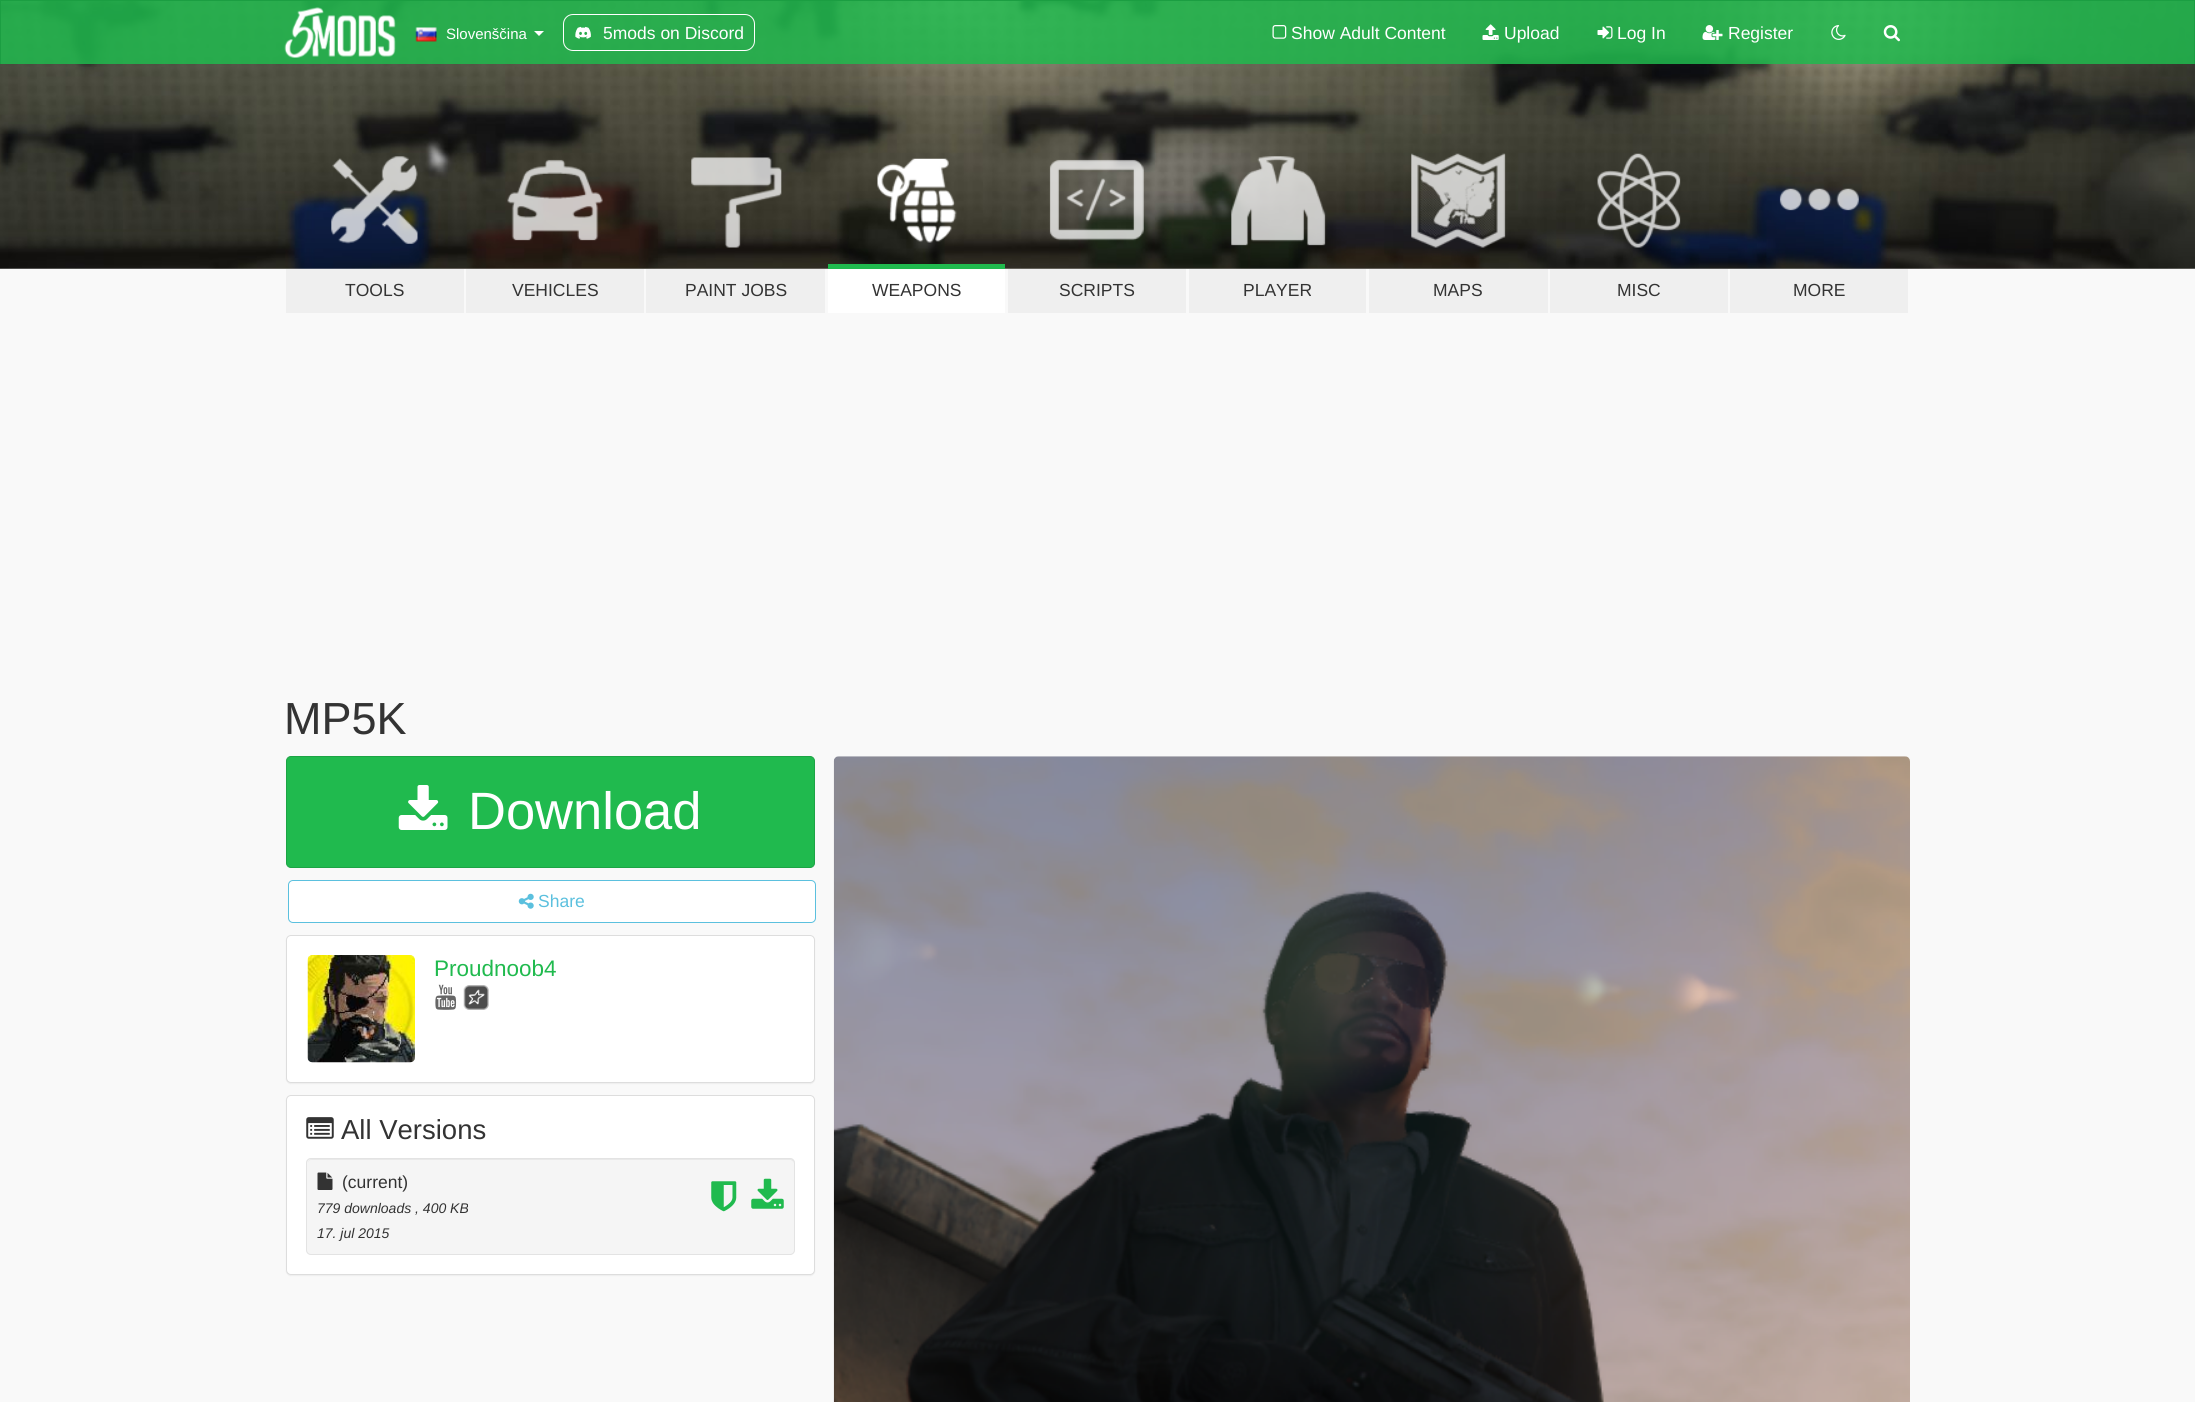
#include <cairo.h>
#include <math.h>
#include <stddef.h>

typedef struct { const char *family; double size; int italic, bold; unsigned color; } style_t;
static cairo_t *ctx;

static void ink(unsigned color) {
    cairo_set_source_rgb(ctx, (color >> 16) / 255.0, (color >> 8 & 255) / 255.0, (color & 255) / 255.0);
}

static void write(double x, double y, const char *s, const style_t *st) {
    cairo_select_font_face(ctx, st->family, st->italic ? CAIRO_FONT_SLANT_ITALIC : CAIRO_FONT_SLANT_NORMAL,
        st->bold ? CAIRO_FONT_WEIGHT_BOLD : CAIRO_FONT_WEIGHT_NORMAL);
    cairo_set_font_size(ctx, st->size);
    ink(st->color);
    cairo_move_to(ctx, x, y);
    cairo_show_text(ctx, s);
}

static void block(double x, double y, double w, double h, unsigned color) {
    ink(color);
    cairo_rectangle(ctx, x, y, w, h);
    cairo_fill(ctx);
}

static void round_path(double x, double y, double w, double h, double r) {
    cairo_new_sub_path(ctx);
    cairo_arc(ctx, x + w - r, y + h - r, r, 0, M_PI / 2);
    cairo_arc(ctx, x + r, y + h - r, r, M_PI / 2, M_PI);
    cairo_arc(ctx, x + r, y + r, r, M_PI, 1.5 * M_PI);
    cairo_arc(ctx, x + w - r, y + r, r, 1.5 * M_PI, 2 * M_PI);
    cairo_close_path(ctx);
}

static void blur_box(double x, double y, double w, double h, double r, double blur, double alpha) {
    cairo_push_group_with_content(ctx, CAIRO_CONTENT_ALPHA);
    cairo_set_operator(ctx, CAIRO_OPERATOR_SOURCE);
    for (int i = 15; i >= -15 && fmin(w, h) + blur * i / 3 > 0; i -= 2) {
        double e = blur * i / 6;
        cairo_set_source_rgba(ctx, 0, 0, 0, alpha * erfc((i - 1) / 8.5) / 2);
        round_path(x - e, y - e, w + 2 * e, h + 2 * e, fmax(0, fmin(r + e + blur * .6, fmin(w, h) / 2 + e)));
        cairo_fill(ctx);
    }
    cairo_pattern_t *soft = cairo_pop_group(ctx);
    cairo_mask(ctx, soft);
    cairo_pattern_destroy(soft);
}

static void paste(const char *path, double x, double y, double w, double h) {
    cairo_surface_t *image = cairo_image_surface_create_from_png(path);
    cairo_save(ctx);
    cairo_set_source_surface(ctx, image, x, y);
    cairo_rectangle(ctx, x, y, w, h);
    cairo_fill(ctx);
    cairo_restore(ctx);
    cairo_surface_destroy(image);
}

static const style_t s1 = {"Liberation Sans", 15, 0, 0, 0xffffff};
static const style_t s2 = {"Liberation Sans", 17.5, 0, 0, 0xffffff};
static const style_t s3 = {"Liberation Sans", 17.5, 0, 0, 0x333333};
static const style_t s4 = {"Liberation Sans", 45, 0, 0, 0x333333};
static const style_t s5 = {"Liberation Sans", 52.5, 0, 0, 0xffffff};
static const style_t s6 = {"Liberation Sans", 17.5, 0, 0, 0x5bc0de};
static const style_t s7 = {"Liberation Sans", 22.5, 0, 0, 0x20ba4e};
static const style_t s8 = {"Liberation Sans", 27.5, 0, 0, 0x333333};
static const style_t s9 = {"Liberation Sans", 14, 1, 0, 0x333333};

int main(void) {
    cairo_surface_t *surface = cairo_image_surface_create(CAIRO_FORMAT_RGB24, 2195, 1402);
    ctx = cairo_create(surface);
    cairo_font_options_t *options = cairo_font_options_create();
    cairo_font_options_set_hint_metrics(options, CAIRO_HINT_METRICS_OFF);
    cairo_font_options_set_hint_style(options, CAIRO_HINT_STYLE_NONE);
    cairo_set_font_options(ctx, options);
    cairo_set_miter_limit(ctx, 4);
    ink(0xf9f9f9);
    cairo_paint(ctx);
    paste("pic10.png", 0, 1, 2195, 268);
    cairo_set_source_rgba(ctx, 0.125, 0.729, 0.306, 0.85);
    cairo_rectangle(ctx, 1, 1, 2193, 63);
    cairo_fill(ctx);
    block(0, 0, 2195, 1, 0x1b9e42);
    block(2194, 0, 1, 64, 0x1b9e42);
    block(0, 0, 1, 64, 0x1b9e42);
    paste("pic1.png", 284, 7, 112, 51);
    paste("pic2.png", 415, 27, 22, 15);
    write(446, 39, "Slovenščina", &s1);
    cairo_new_path(ctx);
    cairo_move_to(ctx, 534, 31);
    cairo_line_to(ctx, 544, 31);
    cairo_line_to(ctx, 539, 36);
    cairo_close_path(ctx);
    cairo_fill(ctx);
    round_path(563.5, 14.5, 191, 36, 9.5);
    cairo_set_line_width(ctx, 1);
    cairo_stroke(ctx);
    paste("pic3.png", 575, 26, 16, 13);
    write(603, 39, "5mods on Discord", &s2);
    paste("pic4.png", 1272, 25, 15, 14);
    write(1291, 39, "Show Adult Content", &s2);
    paste("pic5.png", 1482, 24, 17, 16);
    write(1504, 39, "Upload", &s2);
    paste("pic6.png", 1597, 26, 16, 13);
    write(1617, 39, "Log In", &s2);
    paste("pic7.png", 1702, 25, 21, 15);
    write(1728, 39, "Register", &s2);
    paste("pic8.png", 1831, 25, 15, 15);
    paste("pic9.png", 1883, 25, 17, 17);
    paste("pic11.png", 331, 156, 87, 88);
    block(286, 269, 178, 44, 0xefefef);
    write(345, 296, "TOOLS", &s3);
    paste("pic12.png", 507, 159, 96, 82);
    block(466, 269, 178, 44, 0xefefef);
    write(512, 296, "VEHICLES", &s3);
    paste("pic13.png", 691, 157, 91, 91);
    block(646, 269, 179, 44, 0xefefef);
    write(685, 296, "PAINT JOBS", &s3);
    paste("pic14.png", 877, 158, 80, 85);
    block(828, 264, 177, 5, 0x20ba4e);
    block(828, 269, 177, 44, 0xffffff);
    write(872, 296, "WEAPONS", &s3);
    paste("pic15.png", 1049, 159, 95, 82);
    block(1008, 269, 178, 44, 0xefefef);
    write(1059, 296, "SCRIPTS", &s3);
    paste("pic16.png", 1231, 156, 95, 90);
    block(1189, 269, 177, 44, 0xefefef);
    write(1243, 296, "PLAYER", &s3);
    paste("pic17.png", 1411, 153, 95, 95);
    block(1369, 269, 179, 44, 0xefefef);
    write(1433, 296, "MAPS", &s3);
    paste("pic18.png", 1597, 153, 84, 95);
    block(1550, 269, 178, 44, 0xefefef);
    write(1617, 296, "MISC", &s3);
    paste("pic19.png", 1779, 188, 80, 23);
    block(1730, 269, 178, 44, 0xefefef);
    write(1793, 296, "MORE", &s3);
    write(284, 734, "MP5K", &s4);
    ink(0x20ba4e);
    round_path(286.5, 756.5, 528, 111, 4.5);
    cairo_fill_preserve(ctx);
    ink(0x1ca445);
    cairo_stroke(ctx);
    paste("pic20.png", 398, 785, 50, 45);
    write(468, 829, "Download", &s5);
    round_path(288.5, 880.5, 527, 42, 4.5);
    cairo_fill_preserve(ctx);
    ink(0x5bc0de);
    cairo_stroke(ctx);
    paste("pic21.png", 518, 893, 16, 16);
    write(538, 907, "Share", &s6);
    ink(0x000000);
    blur_box(286, 936, 529, 148, 5, 0.5, 0.05);
    ink(0xffffff);
    round_path(286.5, 935.5, 528, 147, 4.5);
    cairo_fill_preserve(ctx);
    ink(0xdddddd);
    cairo_stroke(ctx);
    paste("pic22.png", 307, 955, 108, 108);
    write(434, 976, "Proudnoob4", &s7);
    paste("pic23.png", 435, 984, 22, 26);
    paste("pic24.png", 463, 985, 26, 25);
    ink(0x000000);
    blur_box(286, 1096, 529, 180, 5, 0.5, 0.05);
    ink(0xffffff);
    round_path(286.5, 1095.5, 528, 179, 4.5);
    cairo_fill_preserve(ctx);
    ink(0xdddddd);
    cairo_stroke(ctx);
    paste("pic25.png", 306, 1117, 28, 22);
    write(341, 1139, "All Versions", &s8);
    ink(0xf5f5f5);
    round_path(306, 1158, 489, 97, 5);
    cairo_fill(ctx);
    ink(0xe9e9e9);
    cairo_new_path(ctx);
    cairo_move_to(ctx, 311, 1160);
    cairo_line_to(ctx, 790, 1160);
    cairo_curve_to(ctx, 792, 1160, 794, 1162, 794, 1164);
    cairo_curve_to(ctx, 794, 1161, 793, 1159, 790, 1159);
    cairo_line_to(ctx, 312, 1159);
    cairo_curve_to(ctx, 309, 1159, 308, 1161, 308, 1164);
    cairo_curve_to(ctx, 308, 1162, 309, 1160, 311, 1160);
    cairo_close_path(ctx);
    cairo_fill(ctx);
    round_path(306.5, 1158.5, 488, 96, 4.5);
    ink(0xe3e3e3);
    cairo_stroke(ctx);
    paste("pic26.png", 317, 1172, 16, 18);
    write(342, 1188, "(current)", &s3);
    write(317, 1213, "779 downloads , 400 KB", &s9);
    write(317, 1238, "17. jul 2015", &s9);
    paste("pic27.png", 711, 1181, 26, 31);
    paste("pic28.png", 751, 1178, 33, 31);
    paste("pic29.png", 833, 756, 1077, 646);
    cairo_surface_write_to_png(surface, "screenshot.png");
    cairo_font_options_destroy(options);
    cairo_destroy(ctx);
    cairo_surface_destroy(surface);
    return 0;
}
